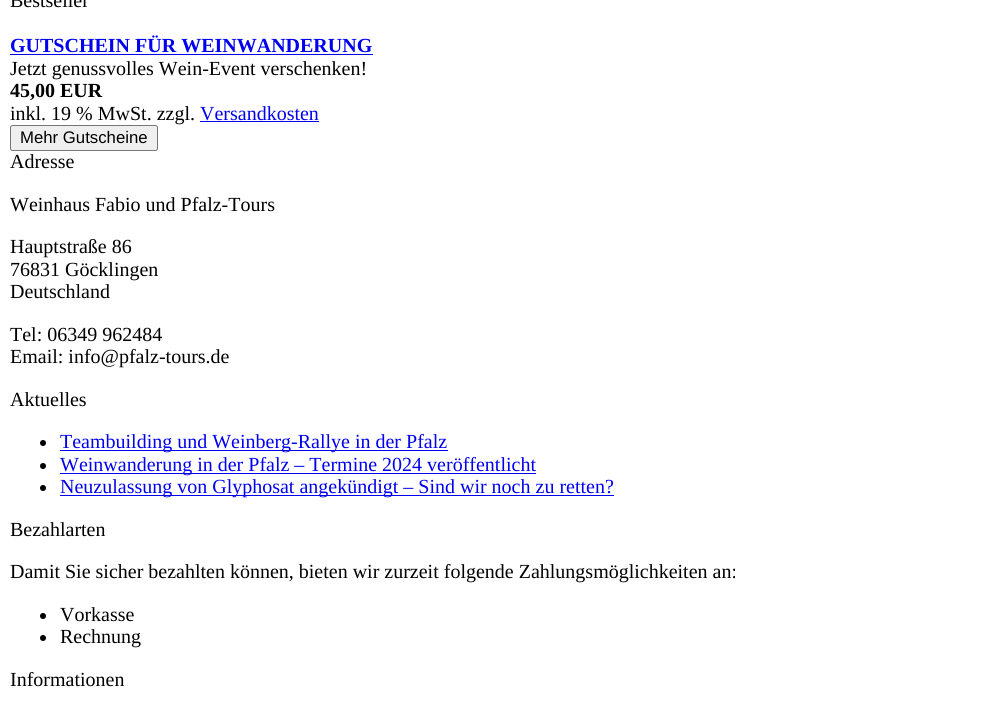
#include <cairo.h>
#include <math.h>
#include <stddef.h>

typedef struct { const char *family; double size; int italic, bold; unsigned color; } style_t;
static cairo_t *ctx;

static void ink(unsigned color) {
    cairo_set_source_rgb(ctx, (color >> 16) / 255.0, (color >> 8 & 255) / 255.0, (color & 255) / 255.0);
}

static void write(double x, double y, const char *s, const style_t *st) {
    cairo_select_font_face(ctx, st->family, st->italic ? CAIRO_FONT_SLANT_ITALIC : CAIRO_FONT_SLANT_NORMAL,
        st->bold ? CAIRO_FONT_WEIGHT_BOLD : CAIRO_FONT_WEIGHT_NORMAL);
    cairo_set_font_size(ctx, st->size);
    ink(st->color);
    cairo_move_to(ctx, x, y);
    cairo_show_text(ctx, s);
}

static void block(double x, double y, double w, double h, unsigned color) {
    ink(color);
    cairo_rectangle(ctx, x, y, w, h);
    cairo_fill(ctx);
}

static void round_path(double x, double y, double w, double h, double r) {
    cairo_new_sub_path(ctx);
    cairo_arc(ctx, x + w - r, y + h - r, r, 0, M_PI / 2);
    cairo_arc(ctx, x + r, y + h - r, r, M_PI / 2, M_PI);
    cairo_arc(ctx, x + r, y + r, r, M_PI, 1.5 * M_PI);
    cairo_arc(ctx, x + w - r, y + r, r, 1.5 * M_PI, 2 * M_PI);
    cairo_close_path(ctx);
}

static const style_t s1 = {"Liberation Serif", 20, 0, 0, 0x000000};
static const style_t s2 = {"Liberation Serif", 20, 0, 1, 0x0000ee};
static const style_t s3 = {"Liberation Serif", 20, 0, 1, 0x000000};
static const style_t s4 = {"Liberation Serif", 20, 0, 0, 0x0000ee};
static const style_t s5 = {"Liberation Sans", 16.75, 0, 0, 0x000000};

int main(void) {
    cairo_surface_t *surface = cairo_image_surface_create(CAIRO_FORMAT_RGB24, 990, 704);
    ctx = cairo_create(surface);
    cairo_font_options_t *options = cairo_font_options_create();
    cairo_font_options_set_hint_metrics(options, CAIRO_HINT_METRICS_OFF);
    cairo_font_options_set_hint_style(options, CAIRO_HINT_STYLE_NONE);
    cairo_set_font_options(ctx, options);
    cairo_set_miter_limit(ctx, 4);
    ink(0xffffff);
    cairo_paint(ctx);
    write(10, 7, "Bestseller", &s1);
    write(10, 52, "GUTSCHEIN FÜR WEINWANDERUNG", &s2);
    block(10, 54, 363, 1, 0x0000ee);
    write(10, 75, "Jetzt genussvolles Wein-Event verschenken!", &s1);
    write(10, 97, "45,00 EUR", &s3);
    write(10, 120, "inkl. 19 % MwSt. zzgl.", &s1);
    write(200, 120, "Versandkosten", &s4);
    block(200, 121, 119, 1, 0x0000ee);
    ink(0xefefef);
    round_path(10.5, 125.5, 147, 25, 2);
    cairo_fill_preserve(ctx);
    ink(0x767676);
    cairo_set_line_width(ctx, 1);
    cairo_stroke(ctx);
    write(20, 143, "Mehr Gutscheine", &s5);
    write(10, 168, "Adresse", &s1);
    write(10, 211, "Weinhaus Fabio und Pfalz-Tours", &s1);
    write(10, 253, "Hauptstraße 86", &s1);
    write(10, 276, "76831 Göcklingen", &s1);
    write(10, 298, "Deutschland", &s1);
    write(10, 341, "Tel: 06349 962484", &s1);
    write(10, 363, "Email: info@pfalz-tours.de", &s1);
    write(10, 406, "Aktuelles", &s1);
    cairo_new_path(ctx);
    cairo_arc(ctx, 43, 443, 3, 0, 2 * M_PI);
    cairo_fill(ctx);
    block(60, 450, 388, 1, 0x0000ee);
    write(60, 448, "Teambuilding und Weinberg-Rallye in der Pfalz", &s4);
    ink(0x000000);
    cairo_new_path(ctx);
    cairo_arc(ctx, 43, 466, 3, 0, 2 * M_PI);
    cairo_fill(ctx);
    block(60, 473, 476, 1, 0x0000ee);
    write(60, 471, "Weinwanderung in der Pfalz – Termine 2024 veröffentlicht", &s4);
    ink(0x000000);
    cairo_new_path(ctx);
    cairo_arc(ctx, 43, 488, 3, 0, 2 * M_PI);
    cairo_fill(ctx);
    block(60, 495, 554, 1, 0x0000ee);
    write(60, 493, "Neuzulassung von Glyphosat angekündigt – Sind wir noch zu retten?", &s4);
    write(10, 536, "Bezahlarten", &s1);
    write(10, 578, "Damit Sie sicher bezahlten können, bieten wir zurzeit folgende Zahlungsmöglichkeiten an:", &s1);
    cairo_new_path(ctx);
    cairo_arc(ctx, 43, 616, 3, 0, 2 * M_PI);
    cairo_fill(ctx);
    write(60, 621, "Vorkasse", &s1);
    cairo_new_path(ctx);
    cairo_arc(ctx, 43, 638, 3, 0, 2 * M_PI);
    cairo_fill(ctx);
    write(60, 643, "Rechnung", &s1);
    write(10, 686, "Informationen", &s1);
    cairo_surface_write_to_png(surface, "screenshot.png");
    cairo_font_options_destroy(options);
    cairo_destroy(ctx);
    cairo_surface_destroy(surface);
    return 0;
}
